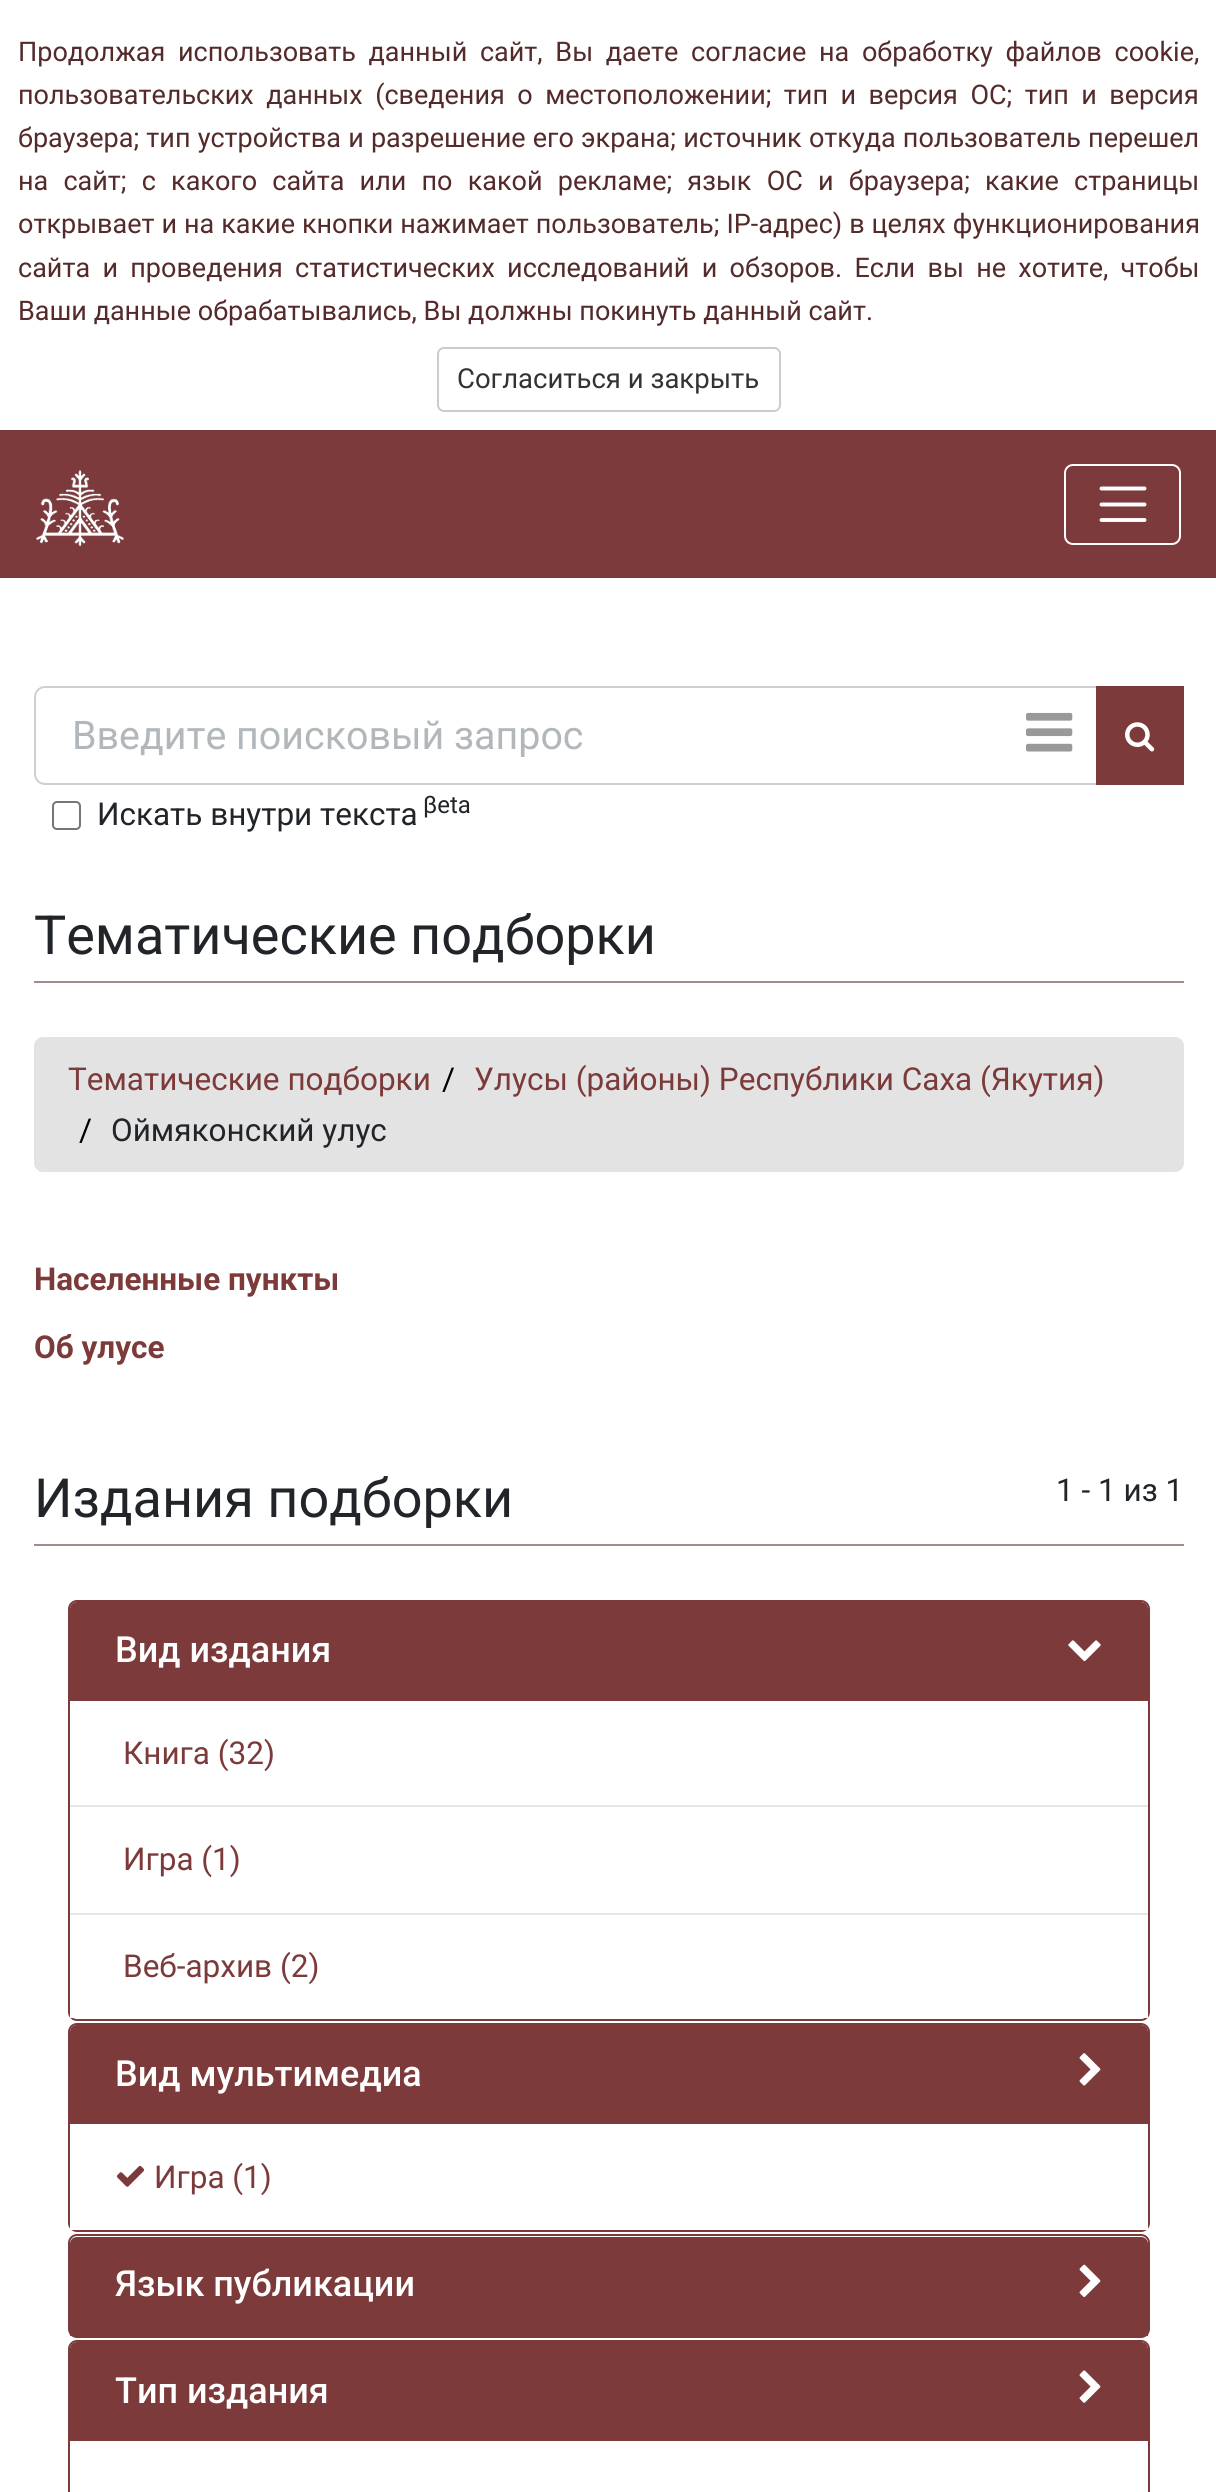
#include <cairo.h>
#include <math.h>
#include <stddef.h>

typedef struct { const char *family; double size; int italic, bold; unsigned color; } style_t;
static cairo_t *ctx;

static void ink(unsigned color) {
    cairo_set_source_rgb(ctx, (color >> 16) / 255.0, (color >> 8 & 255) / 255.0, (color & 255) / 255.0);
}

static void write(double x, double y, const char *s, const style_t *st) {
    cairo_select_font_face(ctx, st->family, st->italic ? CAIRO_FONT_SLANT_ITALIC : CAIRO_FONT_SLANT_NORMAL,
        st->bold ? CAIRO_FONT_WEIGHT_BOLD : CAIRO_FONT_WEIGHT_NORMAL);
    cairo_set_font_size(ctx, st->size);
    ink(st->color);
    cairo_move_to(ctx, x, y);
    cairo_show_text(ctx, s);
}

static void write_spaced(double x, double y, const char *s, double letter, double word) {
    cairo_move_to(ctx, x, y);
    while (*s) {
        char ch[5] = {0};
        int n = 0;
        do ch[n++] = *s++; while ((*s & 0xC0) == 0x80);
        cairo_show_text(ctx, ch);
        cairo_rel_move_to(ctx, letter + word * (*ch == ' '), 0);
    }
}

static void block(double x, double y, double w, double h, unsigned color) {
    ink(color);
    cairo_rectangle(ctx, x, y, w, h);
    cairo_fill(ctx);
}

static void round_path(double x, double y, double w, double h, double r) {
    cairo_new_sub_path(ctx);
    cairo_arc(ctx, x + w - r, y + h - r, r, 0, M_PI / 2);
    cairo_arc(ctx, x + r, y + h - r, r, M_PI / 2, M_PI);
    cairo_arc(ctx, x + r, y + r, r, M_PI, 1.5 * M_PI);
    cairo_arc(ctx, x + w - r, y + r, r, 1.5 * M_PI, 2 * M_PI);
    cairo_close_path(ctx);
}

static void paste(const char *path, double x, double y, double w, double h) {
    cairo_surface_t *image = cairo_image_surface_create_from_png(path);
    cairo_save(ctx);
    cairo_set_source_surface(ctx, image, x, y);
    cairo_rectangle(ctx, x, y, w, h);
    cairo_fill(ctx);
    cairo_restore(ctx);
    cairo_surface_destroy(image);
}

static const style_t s1 = {"Roboto", 27, 0, 0, 0x542a2a};
static const style_t s2 = {"Roboto", 27.5, 0, 0, 0x333333};
static const style_t s3 = {"Roboto", 39.4, 0, 0, 0xb1b7ba};
static const style_t s4 = {"Roboto", 31.5, 0, 0, 0x212529};
static const style_t s5 = {"Roboto", 24, 0, 0, 0x212529};
static const style_t s6 = {"Roboto", 54, 0, 0, 0x212529};
static const style_t s7 = {"Roboto", 31.5, 0, 0, 0x7c3a3a};
static const style_t s8 = {"Roboto", 31.5, 0, 0, 0x000000};
static const style_t s9 = {"Roboto", 31.5, 0, 1, 0x7c3a3a};
static const style_t s10 = {"Roboto Medium", 36, 0, 0, 0xffffff};

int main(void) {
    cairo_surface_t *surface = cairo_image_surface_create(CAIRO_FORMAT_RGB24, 1216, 2492);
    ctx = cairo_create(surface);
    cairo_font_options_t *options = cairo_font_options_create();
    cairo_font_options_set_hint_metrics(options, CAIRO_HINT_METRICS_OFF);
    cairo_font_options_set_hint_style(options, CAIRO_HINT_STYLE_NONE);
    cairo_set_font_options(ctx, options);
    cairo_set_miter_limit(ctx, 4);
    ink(0xffffff);
    cairo_paint(ctx);
    cairo_select_font_face(ctx, "Roboto", CAIRO_FONT_SLANT_NORMAL, CAIRO_FONT_WEIGHT_NORMAL);
    cairo_set_font_size(ctx, 27);
    ink(0x542a2a);
    write_spaced(18, 61, "Продолжая использовать данный сайт, Вы даете согласие на обработку файлов cookie,", 0, 6);
    write_spaced(18, 104, "пользовательских данных (сведения о местоположении; тип и версия ОС; тип и версия", 0, 5.75);
    write_spaced(18, 147, "браузера; тип устройства и разрешение его экрана; источник откуда пользователь перешел", 0, 0.5);
    write_spaced(18, 190, "на сайт; с какого сайта или по какой рекламе; язык ОС и браузера; какие страницы", 0, 8.5);
    write_spaced(18, 233, "открывает и на какие кнопки нажимает пользователь; IP-адрес) в целях функционирования", 0, 0.25);
    write_spaced(18, 277, "сайта и проведения статистических исследований и обзоров. Если вы не хотите, чтобы", 0, 5.6);
    write(18, 320, "Ваши данные обрабатывались, Вы должны покинуть данный сайт.", &s1);
    round_path(438, 348, 342, 63, 6);
    ink(0xcccccc);
    cairo_stroke(ctx);
    write(457, 388, "Согласиться и закрыть", &s2);
    block(0, 430, 1216, 148, 0x7c3a3c);
    paste("pic1.png", 36, 470, 88, 77);
    round_path(1065, 465, 115, 79, 8);
    ink(0xffffff);
    cairo_stroke(ctx);
    cairo_new_path(ctx);
    cairo_move_to(ctx, 1101.5, 488.5);
    cairo_line_to(ctx, 1144.5, 488.5);
    cairo_move_to(ctx, 1101.5, 504.5);
    cairo_line_to(ctx, 1144.5, 504.5);
    cairo_move_to(ctx, 1101.5, 520);
    cairo_line_to(ctx, 1144.5, 520);
    cairo_set_line_width(ctx, 3.9);
    cairo_set_line_cap(ctx, CAIRO_LINE_CAP_ROUND);
    cairo_stroke(ctx);
    ink(0xccd0d2);
    cairo_set_fill_rule(ctx, CAIRO_FILL_RULE_EVEN_ODD);
    cairo_new_path(ctx);
    cairo_move_to(ctx, 45, 686);
    cairo_line_to(ctx, 1098, 686);
    cairo_line_to(ctx, 1098, 785);
    cairo_line_to(ctx, 45, 785);
    cairo_curve_to(ctx, 39, 785, 34, 780, 34, 774);
    cairo_line_to(ctx, 34, 697);
    cairo_curve_to(ctx, 34, 691, 39, 686, 45, 686);
    cairo_close_path(ctx);
    cairo_move_to(ctx, 45, 688);
    cairo_line_to(ctx, 1098, 688);
    cairo_line_to(ctx, 1098, 783);
    cairo_line_to(ctx, 45, 783);
    cairo_curve_to(ctx, 40, 783, 36, 779, 36, 774);
    cairo_line_to(ctx, 36, 697);
    cairo_curve_to(ctx, 36, 692, 40, 688, 45, 688);
    cairo_close_path(ctx);
    cairo_fill(ctx);
    write(72, 749, "Введите поисковый запрос", &s3);
    paste("pic2.png", 1026, 712, 47, 40);
    block(1096, 686, 88, 99, 0x7c3a3a);
    paste("pic3.png", 1125, 722, 30, 30);
    round_path(53, 802, 27, 27, 4);
    ink(0x767676);
    cairo_set_line_width(ctx, 2);
    cairo_set_line_cap(ctx, CAIRO_LINE_CAP_BUTT);
    cairo_stroke(ctx);
    write(97, 825, "Искать внутри текста", &s4);
    write(423, 813, "βeta", &s5);
    block(34, 981, 1150, 2, 0xa78b8b);
    write(34, 954, "Тематические подборки", &s6);
    ink(0xe3e3e3);
    round_path(34, 1037, 1150, 135, 9);
    cairo_fill(ctx);
    write(68, 1090, "Тематические подборки", &s7);
    write(442, 1090, "/", &s8);
    write(474, 1090, "Улусы (районы) Республики Саха (Якутия)", &s7);
    write(79, 1141, "/", &s8);
    write(111, 1141, "Оймяконский улус", &s4);
    write(34, 1290, "Населенные пункты", &s9);
    write(34, 1358, "Об улусе", &s9);
    block(34, 1544, 1150, 2, 0xa78b8b);
    write(34, 1517, "Издания подборки", &s6);
    write(1056, 1501, "1 - 1 из 1", &s4);
    round_path(69, 1601, 1080, 419, 8);
    ink(0x7c3a3a);
    cairo_stroke(ctx);
    cairo_new_path(ctx);
    cairo_move_to(ctx, 77, 1602);
    cairo_line_to(ctx, 1141, 1602);
    cairo_curve_to(ctx, 1145, 1602, 1148, 1605, 1148, 1609);
    cairo_line_to(ctx, 1148, 1701);
    cairo_line_to(ctx, 70, 1701);
    cairo_line_to(ctx, 70, 1609);
    cairo_curve_to(ctx, 70, 1605, 73, 1602, 77, 1602);
    cairo_close_path(ctx);
    cairo_fill(ctx);
    write(115, 1662, "Вид издания", &s10);
    paste("pic4.png", 1068, 1640, 33, 22);
    block(70, 1805, 1078, 2, 0xe6e6e6);
    write(123, 1764, "Книга (32)", &s7);
    block(70, 1913, 1078, 2, 0xe6e6e6);
    write(123, 1870, "Игра (1)", &s7);
    block(70, 2012, 1078, 6, 0xffffff);
    write(123, 1977, "Веб-архив (2)", &s7);
    round_path(69, 2024, 1080, 207, 8);
    cairo_stroke(ctx);
    cairo_new_path(ctx);
    cairo_move_to(ctx, 77, 2025);
    cairo_line_to(ctx, 1141, 2025);
    cairo_curve_to(ctx, 1145, 2025, 1148, 2028, 1148, 2032);
    cairo_line_to(ctx, 1148, 2124);
    cairo_line_to(ctx, 70, 2124);
    cairo_line_to(ctx, 70, 2032);
    cairo_curve_to(ctx, 70, 2028, 73, 2025, 77, 2025);
    cairo_close_path(ctx);
    cairo_fill(ctx);
    write(115, 2086, "Вид мультимедиа", &s10);
    paste("pic5.png", 1079, 2053, 22, 33);
    block(70, 2223, 1078, 7, 0xffffff);
    paste("pic6.png", 116, 2165, 29, 22);
    write(154, 2188, "Игра (1)", &s7);
    round_path(69, 2235, 1080, 102, 8);
    cairo_stroke(ctx);
    cairo_new_path(ctx);
    cairo_move_to(ctx, 77, 2237);
    cairo_line_to(ctx, 1141, 2237);
    cairo_curve_to(ctx, 1145, 2237, 1148, 2240, 1148, 2244);
    cairo_line_to(ctx, 1148, 2336);
    cairo_line_to(ctx, 70, 2336);
    cairo_line_to(ctx, 70, 2244);
    cairo_curve_to(ctx, 70, 2240, 73, 2237, 77, 2237);
    cairo_close_path(ctx);
    cairo_fill(ctx);
    write(115, 2296, "Язык публикации", &s10);
    paste("pic7.png", 1079, 2264, 22, 33);
    round_path(69, 2341, 1080, 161, 8);
    ink(0x7c3a3a);
    cairo_stroke(ctx);
    cairo_new_path(ctx);
    cairo_move_to(ctx, 77, 2342);
    cairo_line_to(ctx, 1141, 2342);
    cairo_curve_to(ctx, 1145, 2342, 1148, 2345, 1148, 2349);
    cairo_line_to(ctx, 1148, 2441);
    cairo_line_to(ctx, 70, 2441);
    cairo_line_to(ctx, 70, 2349);
    cairo_curve_to(ctx, 70, 2345, 73, 2342, 77, 2342);
    cairo_close_path(ctx);
    cairo_fill(ctx);
    write(115, 2403, "Тип издания", &s10);
    paste("pic8.png", 1079, 2370, 22, 33);
    cairo_surface_write_to_png(surface, "screenshot.png");
    cairo_font_options_destroy(options);
    cairo_destroy(ctx);
    cairo_surface_destroy(surface);
    return 0;
}
